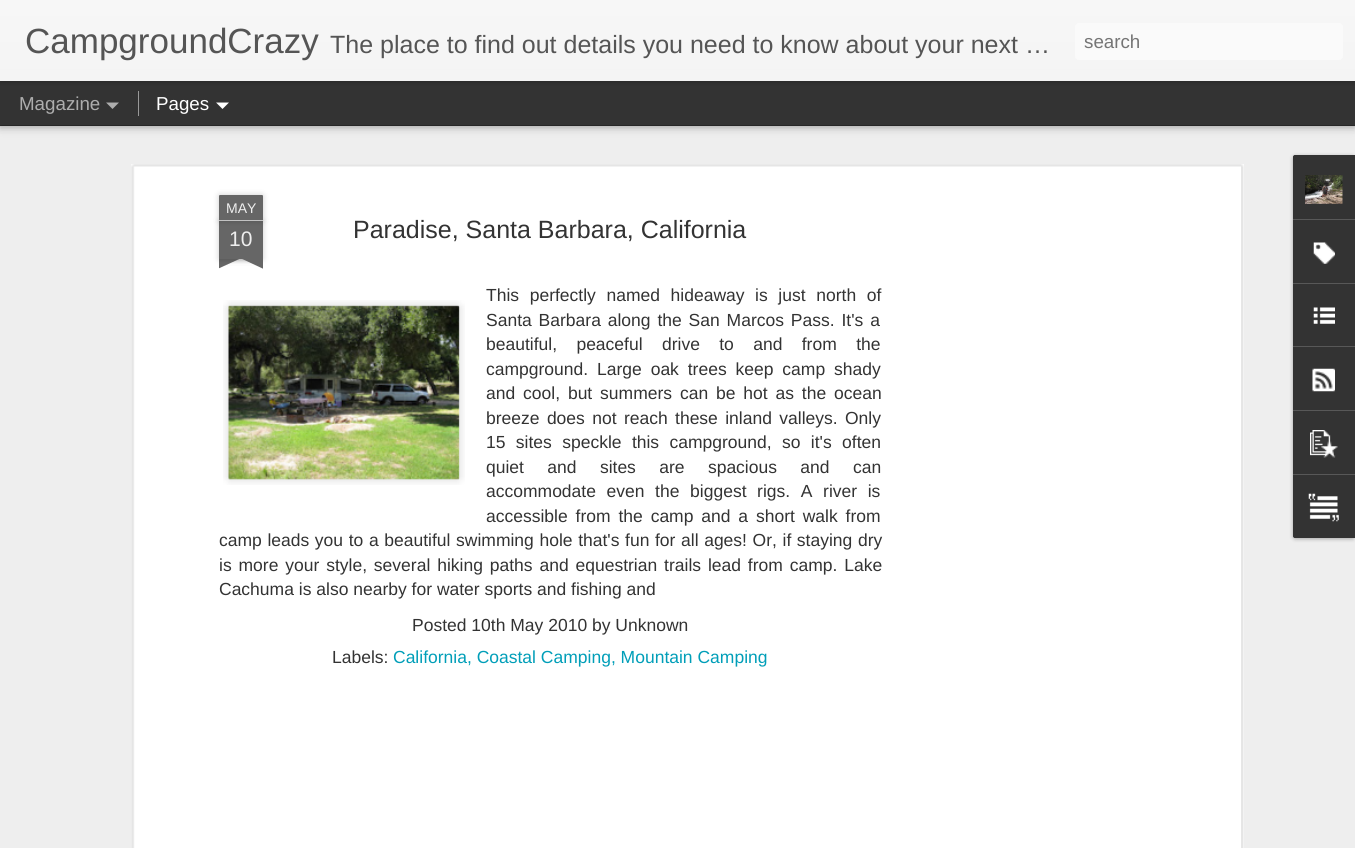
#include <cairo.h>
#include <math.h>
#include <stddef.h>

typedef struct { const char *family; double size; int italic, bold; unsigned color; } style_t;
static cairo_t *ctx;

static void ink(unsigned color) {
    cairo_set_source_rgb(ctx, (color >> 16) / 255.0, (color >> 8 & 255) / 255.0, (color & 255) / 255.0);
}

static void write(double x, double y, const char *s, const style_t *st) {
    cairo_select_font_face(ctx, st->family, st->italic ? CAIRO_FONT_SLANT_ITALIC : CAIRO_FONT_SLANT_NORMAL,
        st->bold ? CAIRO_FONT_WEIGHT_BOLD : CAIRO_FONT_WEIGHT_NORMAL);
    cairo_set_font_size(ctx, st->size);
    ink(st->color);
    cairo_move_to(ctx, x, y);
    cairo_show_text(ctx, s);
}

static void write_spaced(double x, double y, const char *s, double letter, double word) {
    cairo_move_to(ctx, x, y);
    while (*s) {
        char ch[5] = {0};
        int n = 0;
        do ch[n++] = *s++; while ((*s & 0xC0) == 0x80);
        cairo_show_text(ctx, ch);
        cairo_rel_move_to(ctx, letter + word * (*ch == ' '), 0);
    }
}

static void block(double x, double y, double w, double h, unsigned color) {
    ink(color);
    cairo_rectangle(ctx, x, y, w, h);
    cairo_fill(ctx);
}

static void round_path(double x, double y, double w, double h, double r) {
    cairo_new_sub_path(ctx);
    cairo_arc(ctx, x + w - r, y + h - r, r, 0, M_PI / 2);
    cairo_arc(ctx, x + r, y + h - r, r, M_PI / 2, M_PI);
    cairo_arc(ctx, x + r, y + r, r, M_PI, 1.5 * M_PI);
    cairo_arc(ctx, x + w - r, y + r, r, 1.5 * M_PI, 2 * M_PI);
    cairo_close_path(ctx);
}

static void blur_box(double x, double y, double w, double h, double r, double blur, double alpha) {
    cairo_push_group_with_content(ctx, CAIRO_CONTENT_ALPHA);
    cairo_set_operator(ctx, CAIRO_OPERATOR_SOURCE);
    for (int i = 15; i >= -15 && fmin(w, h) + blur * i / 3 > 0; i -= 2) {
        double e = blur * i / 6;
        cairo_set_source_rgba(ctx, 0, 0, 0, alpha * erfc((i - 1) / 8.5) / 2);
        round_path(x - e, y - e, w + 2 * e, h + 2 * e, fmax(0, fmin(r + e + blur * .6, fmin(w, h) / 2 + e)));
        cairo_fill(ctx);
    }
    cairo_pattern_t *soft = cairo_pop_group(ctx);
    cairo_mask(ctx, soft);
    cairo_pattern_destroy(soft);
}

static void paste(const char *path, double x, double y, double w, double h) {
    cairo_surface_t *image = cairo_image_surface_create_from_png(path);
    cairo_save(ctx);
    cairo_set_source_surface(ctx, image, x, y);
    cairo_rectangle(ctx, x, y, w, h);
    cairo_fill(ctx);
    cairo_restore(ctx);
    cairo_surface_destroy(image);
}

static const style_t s1 = {"Liberation Sans", 35, 0, 0, 0x555555};
static const style_t s2 = {"Liberation Sans", 25, 0, 0, 0x555555};
static const style_t s3 = {"Liberation Sans", 18.75, 0, 0, 0x757575};
static const style_t s4 = {"Liberation Sans", 18.75, 0, 0, 0xadadad};
static const style_t s5 = {"Liberation Sans", 18.75, 0, 0, 0xffffff};
static const style_t s6 = {"Liberation Sans", 14, 0, 0, 0xeeeeee};
static const style_t s7 = {"Liberation Sans", 21, 0, 0, 0xeeeeee};
static const style_t s8 = {"Liberation Sans", 25, 0, 0, 0x333333};
static const style_t s9 = {"Liberation Sans", 17.5, 0, 0, 0x333333};
static const style_t s10 = {"Liberation Sans", 17.5, 0, 0, 0x009eb8};

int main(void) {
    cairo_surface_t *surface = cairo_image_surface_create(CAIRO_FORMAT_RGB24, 1355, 848);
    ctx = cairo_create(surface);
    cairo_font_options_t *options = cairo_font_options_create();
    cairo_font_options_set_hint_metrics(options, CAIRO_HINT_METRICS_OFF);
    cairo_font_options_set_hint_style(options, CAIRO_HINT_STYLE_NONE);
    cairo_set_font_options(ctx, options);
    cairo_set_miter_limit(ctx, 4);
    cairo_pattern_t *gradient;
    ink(0x333333);
    cairo_paint(ctx);
    block(0, 126, 1355, 722, 0xeeeeee);
    ink(0x000000);
    blur_box(0, 81, 1355, 44, 0, 5, 0.5);
    block(0, 81, 1355, 44, 0x333333);
    ink(0x000000);
    blur_box(0, 0, 1355, 81, 0, 3, 0.3);
    gradient = cairo_pattern_create_linear(0, 0, 0, 81);
    cairo_pattern_add_color_stop_rgba(gradient, 0, 0.969, 0.969, 0.969, 1);
    cairo_pattern_add_color_stop_rgba(gradient, 1, 0.957, 0.957, 0.957, 1);
    cairo_set_source(ctx, gradient);
    cairo_pattern_destroy(gradient);
    cairo_rectangle(ctx, 0, 0, 1355, 81);
    cairo_fill(ctx);
    write(25, 53, "CampgroundCrazy", &s1);
    write(330, 53, "The place to find out details you need to know about your next …", &s2);
    ink(0xfafafa);
    round_path(1075, 23, 268, 37, 4);
    cairo_fill(ctx);
    write(1084, 48, "search", &s3);
    write(19, 110, "Magazine", &s4);
    cairo_new_path(ctx);
    cairo_move_to(ctx, 106, 102.5);
    cairo_line_to(ctx, 119, 102.5);
    cairo_line_to(ctx, 112.5, 109);
    cairo_close_path(ctx);
    cairo_fill(ctx);
    block(138, 91, 1, 25, 0x999999);
    write(156, 110, "Pages", &s5);
    cairo_new_path(ctx);
    cairo_move_to(ctx, 216, 102.5);
    cairo_line_to(ctx, 229, 102.5);
    cairo_line_to(ctx, 222.5, 109);
    cairo_close_path(ctx);
    cairo_fill(ctx);
    block(131, 164, 1113, 684, 0xffffff);
    paste("pic1.png", 131, 164, 1113, 684);
    ink(0x000000);
    blur_box(219, 221, 44, 38, 0, 3, 0.2);
    block(219, 221, 44, 38, 0x666666);
    ink(0x000000);
    blur_box(219, 195, 44, 26, 1, 3, 0.2);
    ink(0x666666);
    cairo_new_path(ctx);
    cairo_move_to(ctx, 220, 195);
    cairo_line_to(ctx, 262, 195);
    cairo_curve_to(ctx, 262.5, 195, 263, 195.5, 263, 196);
    cairo_line_to(ctx, 263, 221);
    cairo_line_to(ctx, 219, 221);
    cairo_line_to(ctx, 219, 196);
    cairo_curve_to(ctx, 219, 195.5, 219.5, 195, 220, 195);
    cairo_close_path(ctx);
    cairo_fill(ctx);
    block(219, 220, 44, 1, 0xc2c2c2);
    write(226, 213, "MAY", &s6);
    write(229, 246, "10", &s7);
    cairo_save(ctx);
    cairo_rectangle(ctx, 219, 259, 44, 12);
    cairo_clip(ctx);
    ink(0x000000);
    blur_box(208, 246, 62, 13, 0, 3, 0.2);
    cairo_restore(ctx);
    cairo_save(ctx);
    cairo_rectangle(ctx, 219, 259, 44, 12);
    cairo_clip(ctx);
    ink(0x666666);
    cairo_new_path(ctx);
    cairo_move_to(ctx, 208, 260);
    cairo_line_to(ctx, 264, 234);
    cairo_line_to(ctx, 270, 245);
    cairo_line_to(ctx, 213, 271);
    cairo_close_path(ctx);
    cairo_fill(ctx);
    cairo_restore(ctx);
    cairo_save(ctx);
    cairo_rectangle(ctx, 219, 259, 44, 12);
    cairo_clip(ctx);
    ink(0x000000);
    blur_box(211, 246, 63, 13, 0, 3, 0.2);
    cairo_restore(ctx);
    cairo_save(ctx);
    cairo_rectangle(ctx, 219, 259, 44, 12);
    cairo_clip(ctx);
    ink(0x666666);
    cairo_new_path(ctx);
    cairo_move_to(ctx, 217, 234);
    cairo_line_to(ctx, 273, 260);
    cairo_line_to(ctx, 268, 271);
    cairo_line_to(ctx, 212, 245);
    cairo_close_path(ctx);
    cairo_fill(ctx);
    cairo_restore(ctx);
    write(353, 238, "Paradise, Santa Barbara, California", &s8);
    cairo_set_font_size(ctx, 17.5);
    write_spaced(486, 301, "This perfectly named hideaway is just north of", 0, 5.75);
    paste("pic2.png", 223, 300, 242, 185);
    paste("pic3.png", 228, 305, 232, 175);
    write_spaced(486, 326, "Santa Barbara along the San Marcos Pass. It's a", 0, 2);
    write_spaced(486, 350, "beautiful, peaceful drive to and from the", 0, 14.5);
    write_spaced(486, 375, "campground. Large oak trees keep camp shady", 0, 4);
    write_spaced(486, 399, "and cool, but summers can be hot as the ocean", 0, 3);
    write_spaced(486, 424, "breeze does not reach these inland valleys. Only", 0, 2.5);
    write_spaced(486, 448, "15 sites speckle this campground, so it's often", 0, 5.5);
    write_spaced(486, 473, "quiet and sites are spacious and can", 0, 18.5);
    write_spaced(486, 497, "accommodate even the biggest rigs. A river is", 0, 5.75);
    write_spaced(486, 522, "accessible from the camp and a short walk from", 0, 3);
    write_spaced(219, 546, "camp leads you to a beautiful swimming hole that's fun for all ages! Or, if staying dry", 0, 0.75);
    write_spaced(219, 571, "is more your style, several hiking paths and equestrian trails lead from camp. Lake", 0, 2);
    write(219, 595, "Cachuma is also nearby for water sports and fishing and", &s9);
    write(412, 631, "Posted 10th May 2010 by Unknown", &s9);
    write(332, 663, "Labels:", &s9);
    write(393, 663, "California, Coastal Camping, Mountain Camping", &s10);
    ink(0x000000);
    blur_box(1293, 156, 62, 383, 2.5, 2, 0.3);
    ink(0x333333);
    cairo_new_path(ctx);
    cairo_move_to(ctx, 1295.5, 155);
    cairo_line_to(ctx, 1355, 155);
    cairo_line_to(ctx, 1355, 538);
    cairo_line_to(ctx, 1295.5, 538);
    cairo_curve_to(ctx, 1294, 538, 1293, 537, 1293, 535.5);
    cairo_line_to(ctx, 1293, 157.5);
    cairo_curve_to(ctx, 1293, 156, 1294, 155, 1295.5, 155);
    cairo_close_path(ctx);
    cairo_fill(ctx);
    cairo_new_path(ctx);
    cairo_move_to(ctx, 1295.5, 155);
    cairo_line_to(ctx, 1355, 155);
    cairo_line_to(ctx, 1355, 219);
    cairo_line_to(ctx, 1293, 219);
    cairo_line_to(ctx, 1293, 157.5);
    cairo_curve_to(ctx, 1293, 156, 1294, 155, 1295.5, 155);
    cairo_close_path(ctx);
    cairo_fill(ctx);
    paste("pic4.png", 1305, 175, 38, 29);
    block(1293, 219, 62, 1, 0x585858);
    paste("pic5.png", 1313, 242, 22, 22);
    block(1293, 283, 62, 1, 0x585858);
    paste("pic6.png", 1313, 307, 22, 17);
    block(1293, 346, 62, 1, 0x585858);
    paste("pic7.png", 1312, 368, 23, 24);
    block(1293, 410, 62, 1, 0x585858);
    paste("pic8.png", 1310, 430, 28, 28);
    ink(0x333333);
    cairo_new_path(ctx);
    cairo_move_to(ctx, 1293, 474);
    cairo_line_to(ctx, 1355, 474);
    cairo_line_to(ctx, 1355, 538);
    cairo_line_to(ctx, 1295.5, 538);
    cairo_curve_to(ctx, 1294, 538, 1293, 537, 1293, 535.5);
    cairo_close_path(ctx);
    cairo_fill(ctx);
    block(1293, 474, 62, 1, 0x585858);
    paste("pic9.png", 1308, 493, 31, 29);
    cairo_surface_write_to_png(surface, "screenshot.png");
    cairo_font_options_destroy(options);
    cairo_destroy(ctx);
    cairo_surface_destroy(surface);
    return 0;
}
